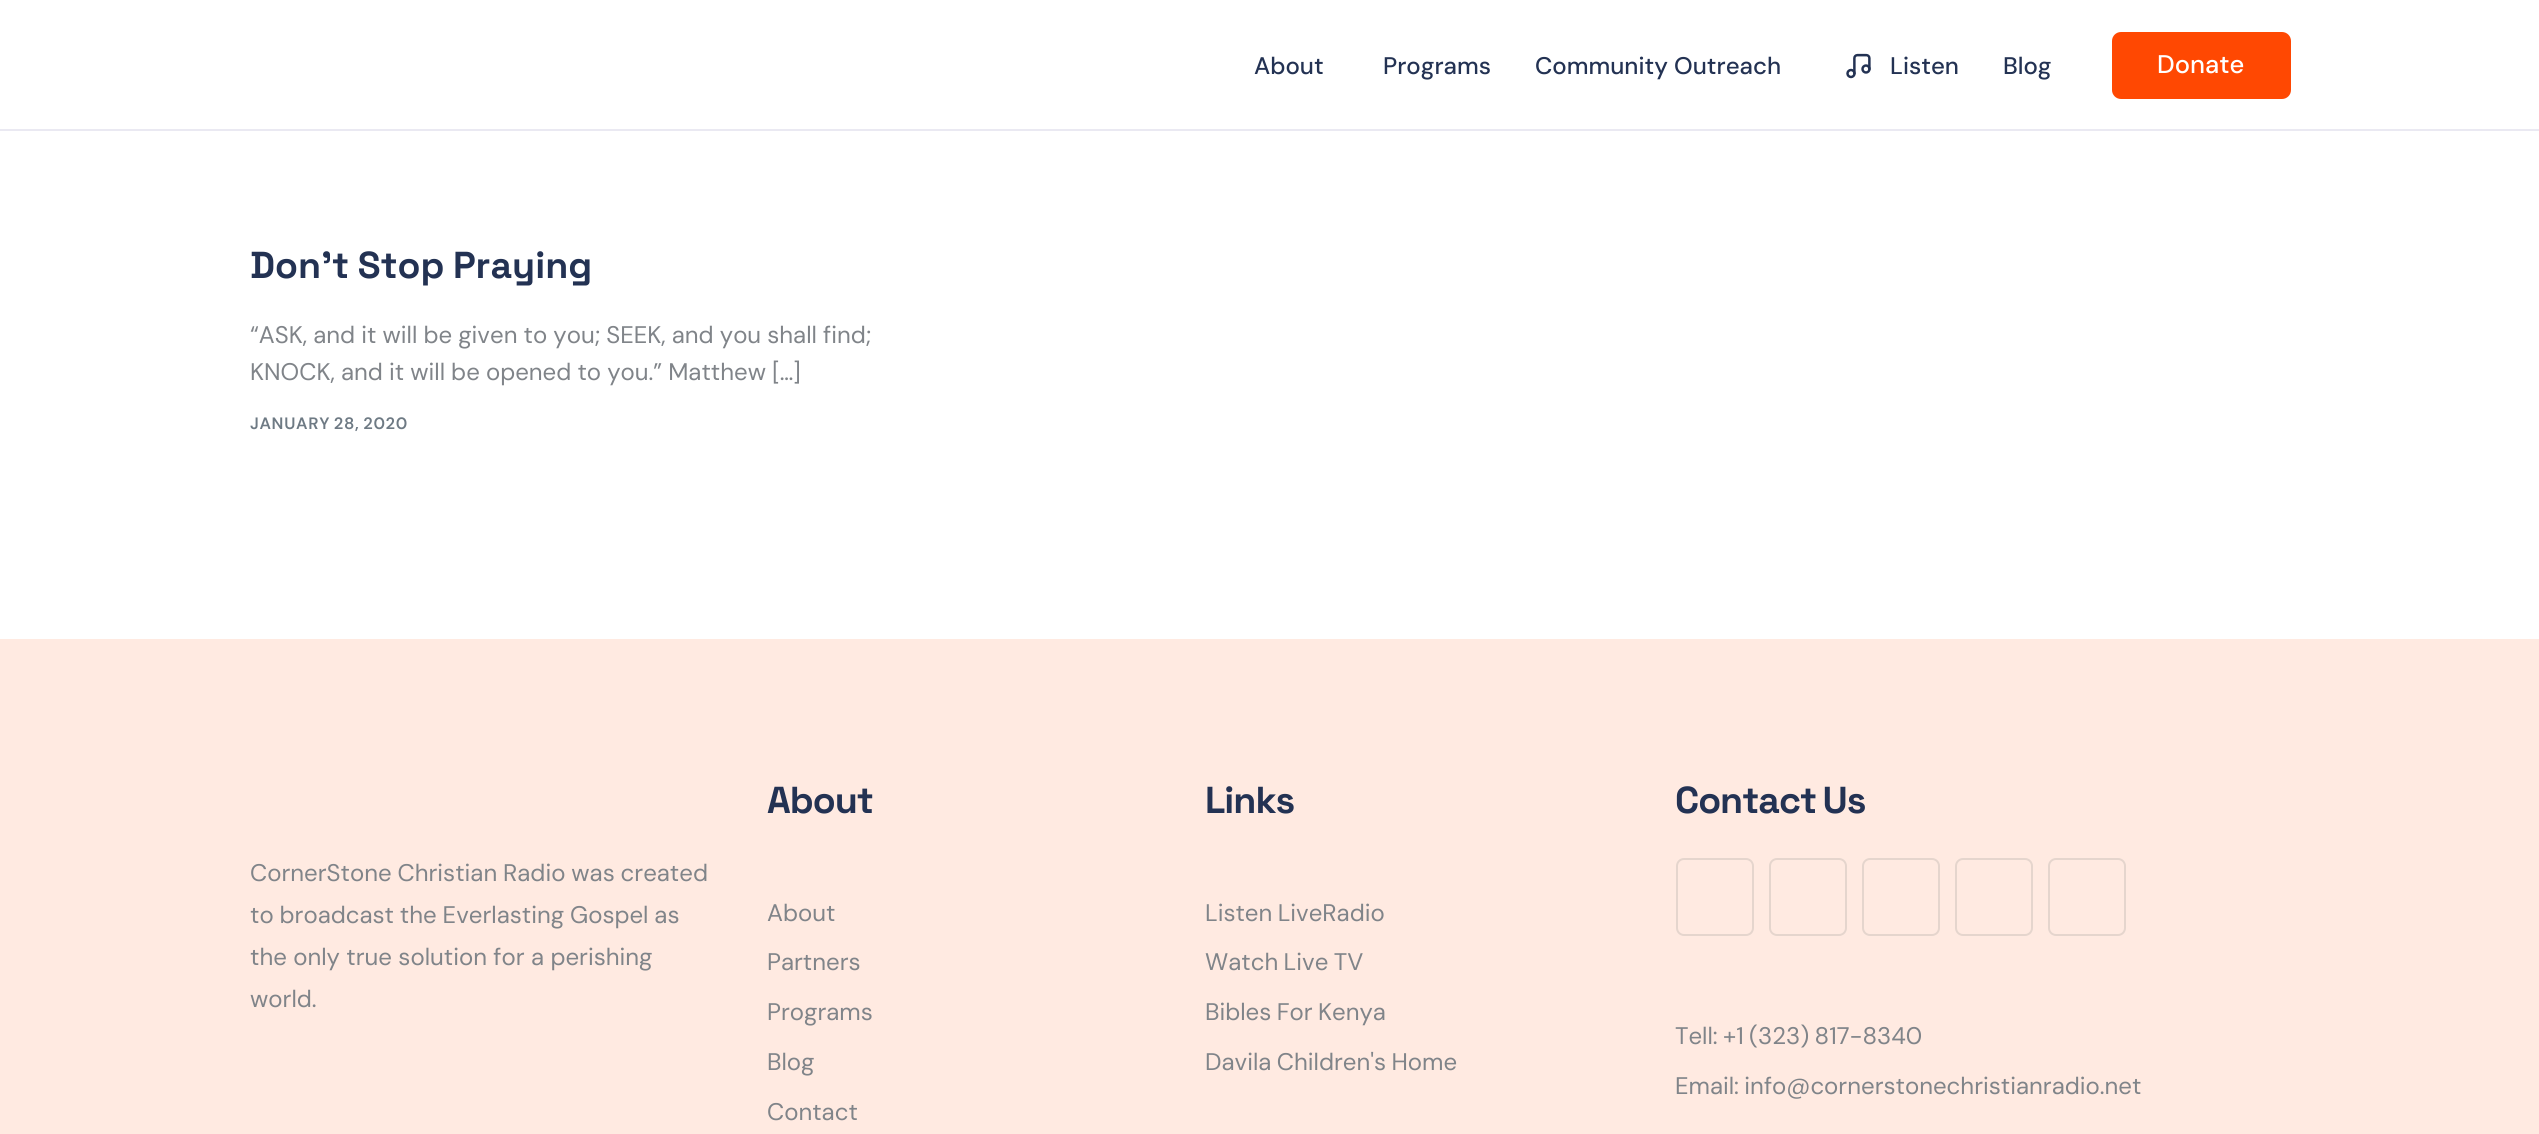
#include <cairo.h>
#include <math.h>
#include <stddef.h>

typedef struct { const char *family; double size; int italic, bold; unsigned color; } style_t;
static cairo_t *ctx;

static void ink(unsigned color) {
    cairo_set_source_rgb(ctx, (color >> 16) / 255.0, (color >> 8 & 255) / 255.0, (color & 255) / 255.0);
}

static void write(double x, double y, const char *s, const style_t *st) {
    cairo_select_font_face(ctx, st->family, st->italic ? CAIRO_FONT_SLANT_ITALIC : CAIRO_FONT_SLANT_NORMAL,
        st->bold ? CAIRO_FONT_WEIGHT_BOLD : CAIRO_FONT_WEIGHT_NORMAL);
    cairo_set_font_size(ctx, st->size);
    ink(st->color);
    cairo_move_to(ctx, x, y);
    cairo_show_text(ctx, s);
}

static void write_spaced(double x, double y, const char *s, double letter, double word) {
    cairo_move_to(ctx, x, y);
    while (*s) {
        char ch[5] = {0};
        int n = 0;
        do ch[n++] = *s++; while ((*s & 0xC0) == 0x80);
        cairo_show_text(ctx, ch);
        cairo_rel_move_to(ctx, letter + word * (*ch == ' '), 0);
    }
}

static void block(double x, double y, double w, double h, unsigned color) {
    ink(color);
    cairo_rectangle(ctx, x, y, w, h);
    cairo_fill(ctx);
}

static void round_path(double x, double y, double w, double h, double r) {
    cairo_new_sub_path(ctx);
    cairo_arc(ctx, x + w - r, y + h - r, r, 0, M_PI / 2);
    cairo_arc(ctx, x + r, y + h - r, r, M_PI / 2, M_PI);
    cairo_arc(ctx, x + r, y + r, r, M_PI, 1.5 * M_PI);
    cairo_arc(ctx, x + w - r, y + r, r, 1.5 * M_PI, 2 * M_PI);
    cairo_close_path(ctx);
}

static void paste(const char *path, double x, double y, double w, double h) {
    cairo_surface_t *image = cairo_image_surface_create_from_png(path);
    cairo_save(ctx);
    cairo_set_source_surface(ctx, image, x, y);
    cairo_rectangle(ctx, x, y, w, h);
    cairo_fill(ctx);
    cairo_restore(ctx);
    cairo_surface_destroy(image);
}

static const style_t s1 = {"DM Sans Medium", 24, 0, 0, 0x233253};
static const style_t s2 = {"DM Sans Medium", 25.5, 0, 0, 0xffffff};
static const style_t s3 = {"DM Sans", 24, 0, 0, 0x808489};

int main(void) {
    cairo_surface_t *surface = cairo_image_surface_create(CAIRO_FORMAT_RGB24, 2539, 1134);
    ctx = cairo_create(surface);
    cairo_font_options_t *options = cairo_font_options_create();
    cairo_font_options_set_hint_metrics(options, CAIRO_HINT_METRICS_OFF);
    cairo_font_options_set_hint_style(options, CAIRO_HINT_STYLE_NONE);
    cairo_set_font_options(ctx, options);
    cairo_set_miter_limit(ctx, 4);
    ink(0xffffff);
    cairo_paint(ctx);
    ink(0xeae9f2);
    cairo_new_path(ctx);
    cairo_move_to(ctx, 0, 129);
    cairo_line_to(ctx, 0, 131);
    cairo_line_to(ctx, 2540, 131);
    cairo_line_to(ctx, 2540, 2);
    cairo_line_to(ctx, 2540, 129);
    cairo_close_path(ctx);
    cairo_fill(ctx);
    write(1254, 74, "About", &s1);
    write(1383, 74, "Programs", &s1);
    write(1535, 74, "Community Outreach", &s1);
    paste("pic1.png", 1846, 53, 25, 26);
    write(1890, 74, "Listen", &s1);
    write(2003, 74, "Blog", &s1);
    ink(0xff4802);
    round_path(2112, 32, 179, 67, 9);
    cairo_fill(ctx);
    write(2157, 73, "Donate", &s2);
    cairo_select_font_face(ctx, "Space Grotesk", CAIRO_FONT_SLANT_NORMAL, CAIRO_FONT_WEIGHT_BOLD);
    cairo_set_font_size(ctx, 37.5);
    ink(0x233253);
    write_spaced(250, 278, "Don’t Stop Praying", 0, -1);
    cairo_select_font_face(ctx, "DM Sans", CAIRO_FONT_SLANT_NORMAL, CAIRO_FONT_WEIGHT_NORMAL);
    cairo_set_font_size(ctx, 24);
    ink(0x808489);
    write_spaced(250, 343, "“ASK, and it will be given to you; SEEK, and you shall find;", 0, -0.25);
    write_spaced(250, 380, "KNOCK, and it will be opened to you.” Matthew […]", 0, -0.25);
    cairo_select_font_face(ctx, "DM Sans SemiBold", CAIRO_FONT_SLANT_NORMAL, CAIRO_FONT_WEIGHT_NORMAL);
    cairo_set_font_size(ctx, 16.5);
    ink(0x6e7a84);
    write_spaced(250, 429, "JANUARY 28, 2020", 0.7, -1);
    block(0, 639, 2539, 495, 0xffeae1);
    cairo_select_font_face(ctx, "DM Sans", CAIRO_FONT_SLANT_NORMAL, CAIRO_FONT_WEIGHT_NORMAL);
    cairo_set_font_size(ctx, 24);
    ink(0x808489);
    write_spaced(250, 881, "CornerStone Christian Radio was created", 0, -0.5);
    write_spaced(250, 923, "to broadcast the Everlasting Gospel as", 0, -0.5);
    write(250, 965, "the only true solution for a perishing", &s3);
    write(250, 1007, "world.", &s3);
    cairo_select_font_face(ctx, "Space Grotesk", CAIRO_FONT_SLANT_NORMAL, CAIRO_FONT_WEIGHT_BOLD);
    cairo_set_font_size(ctx, 37.5);
    ink(0x233253);
    write_spaced(767, 813, "About", -1, 0);
    write(767, 921, "About", &s3);
    write(767, 970, "Partners", &s3);
    write(767, 1020, "Programs", &s3);
    write(767, 1070, "Blog", &s3);
    write(767, 1120, "Contact", &s3);
    cairo_select_font_face(ctx, "Space Grotesk", CAIRO_FONT_SLANT_NORMAL, CAIRO_FONT_WEIGHT_BOLD);
    cairo_set_font_size(ctx, 37.5);
    ink(0x233253);
    write_spaced(1205, 813, "Links", -1, 0);
    cairo_select_font_face(ctx, "DM Sans", CAIRO_FONT_SLANT_NORMAL, CAIRO_FONT_WEIGHT_NORMAL);
    cairo_set_font_size(ctx, 24);
    ink(0x808489);
    write_spaced(1205, 921, "Listen LiveRadio", 0, -1);
    write_spaced(1205, 970, "Watch Live TV", 0, -1);
    write_spaced(1205, 1020, "Bibles For Kenya", 0, -1);
    write_spaced(1205, 1070, "Davila Children's Home", 0, -1);
    cairo_select_font_face(ctx, "Space Grotesk", CAIRO_FONT_SLANT_NORMAL, CAIRO_FONT_WEIGHT_BOLD);
    cairo_set_font_size(ctx, 37.5);
    ink(0x233253);
    write_spaced(1675, 813, "Contact Us", -1, -2);
    round_path(1677, 859, 76, 76, 7);
    ink(0xe5d5cd);
    cairo_stroke(ctx);
    round_path(1770, 859, 76, 76, 7);
    cairo_stroke(ctx);
    round_path(1863, 859, 76, 76, 7);
    cairo_stroke(ctx);
    round_path(1956, 859, 76, 76, 7);
    cairo_stroke(ctx);
    round_path(2049, 859, 76, 76, 7);
    cairo_stroke(ctx);
    cairo_select_font_face(ctx, "DM Sans", CAIRO_FONT_SLANT_NORMAL, CAIRO_FONT_WEIGHT_NORMAL);
    cairo_set_font_size(ctx, 24);
    ink(0x808489);
    write_spaced(1675, 1044, "Tell: +1 (323) 817-8340", 0, -1);
    write_spaced(1675, 1094, "Email: info@cornerstonechristianradio.net", 0, -1);
    cairo_surface_write_to_png(surface, "screenshot.png");
    cairo_font_options_destroy(options);
    cairo_destroy(ctx);
    cairo_surface_destroy(surface);
    return 0;
}
